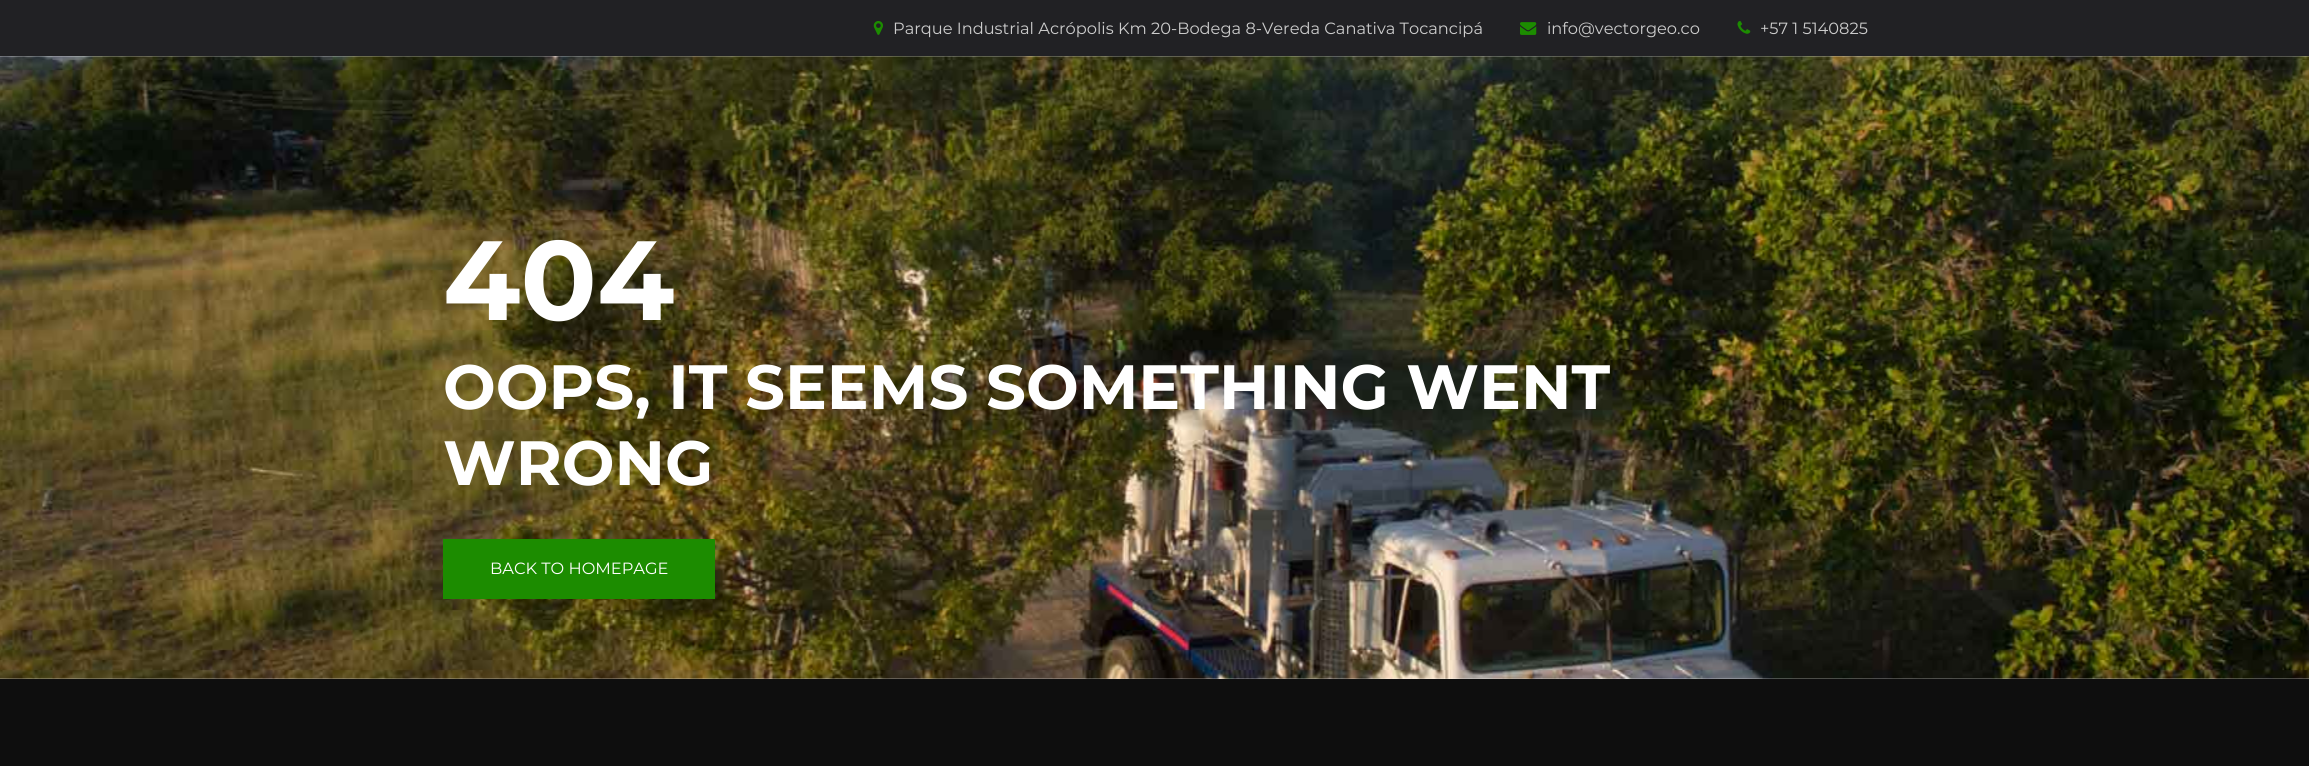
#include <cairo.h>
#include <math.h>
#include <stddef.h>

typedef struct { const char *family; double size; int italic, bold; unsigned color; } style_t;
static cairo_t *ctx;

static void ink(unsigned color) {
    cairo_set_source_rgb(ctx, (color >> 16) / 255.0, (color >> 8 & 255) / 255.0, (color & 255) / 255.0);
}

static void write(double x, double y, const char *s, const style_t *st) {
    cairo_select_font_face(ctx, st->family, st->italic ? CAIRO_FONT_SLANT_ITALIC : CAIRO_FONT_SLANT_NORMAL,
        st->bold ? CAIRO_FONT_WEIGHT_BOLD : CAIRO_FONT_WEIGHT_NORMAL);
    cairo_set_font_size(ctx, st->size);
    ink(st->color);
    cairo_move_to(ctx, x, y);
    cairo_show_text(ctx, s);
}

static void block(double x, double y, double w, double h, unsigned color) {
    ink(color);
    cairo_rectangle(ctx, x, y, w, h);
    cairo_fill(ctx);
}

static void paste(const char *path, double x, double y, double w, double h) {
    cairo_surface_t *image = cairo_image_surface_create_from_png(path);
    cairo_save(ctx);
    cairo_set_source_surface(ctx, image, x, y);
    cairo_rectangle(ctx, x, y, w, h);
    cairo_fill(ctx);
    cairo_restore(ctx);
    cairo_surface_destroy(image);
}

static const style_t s1 = {"Montserrat Thin", 16.25, 0, 0, 0xcccccc};
static const style_t s2 = {"Montserrat", 112.5, 0, 1, 0xffffff};
static const style_t s3 = {"Montserrat", 62.5, 0, 1, 0xffffff};
static const style_t s4 = {"Montserrat Thin", 16.25, 0, 0, 0xffffff};

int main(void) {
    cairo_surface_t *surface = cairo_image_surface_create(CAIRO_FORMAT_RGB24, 2309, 766);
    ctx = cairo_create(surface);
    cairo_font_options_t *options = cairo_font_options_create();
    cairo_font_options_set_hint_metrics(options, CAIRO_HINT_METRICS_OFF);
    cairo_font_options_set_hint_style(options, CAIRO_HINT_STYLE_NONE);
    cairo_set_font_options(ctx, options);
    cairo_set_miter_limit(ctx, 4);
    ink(0xffffff);
    cairo_paint(ctx);
    block(0, 0, 2309, 56, 0x212124);
    paste("pic1.png", 873, 21, 10, 14);
    write(893, 34, "Parque Industrial Acrópolis Km 20-Bodega 8-Vereda Canativa Tocancipá", &s1);
    paste("pic2.png", 1520, 22, 17, 13);
    write(1547, 34, "info@vectorgeo.co", &s1);
    paste("pic3.png", 1737, 21, 14, 13);
    write(1760, 34, "+57 1 5140825", &s1);
    paste("pic4.png", 0, 56, 2309, 623);
    write(443, 320, "404", &s2);
    write(443, 409, "OOPS, IT SEEMS SOMETHING WENT", &s3);
    write(443, 485, "WRONG", &s3);
    block(443, 539, 272, 60, 0x1c8c00);
    write(490, 574, "BACK TO HOMEPAGE", &s4);
    block(0, 679, 2309, 87, 0x0e0e0e);
    cairo_surface_write_to_png(surface, "screenshot.png");
    cairo_font_options_destroy(options);
    cairo_destroy(ctx);
    cairo_surface_destroy(surface);
    return 0;
}
